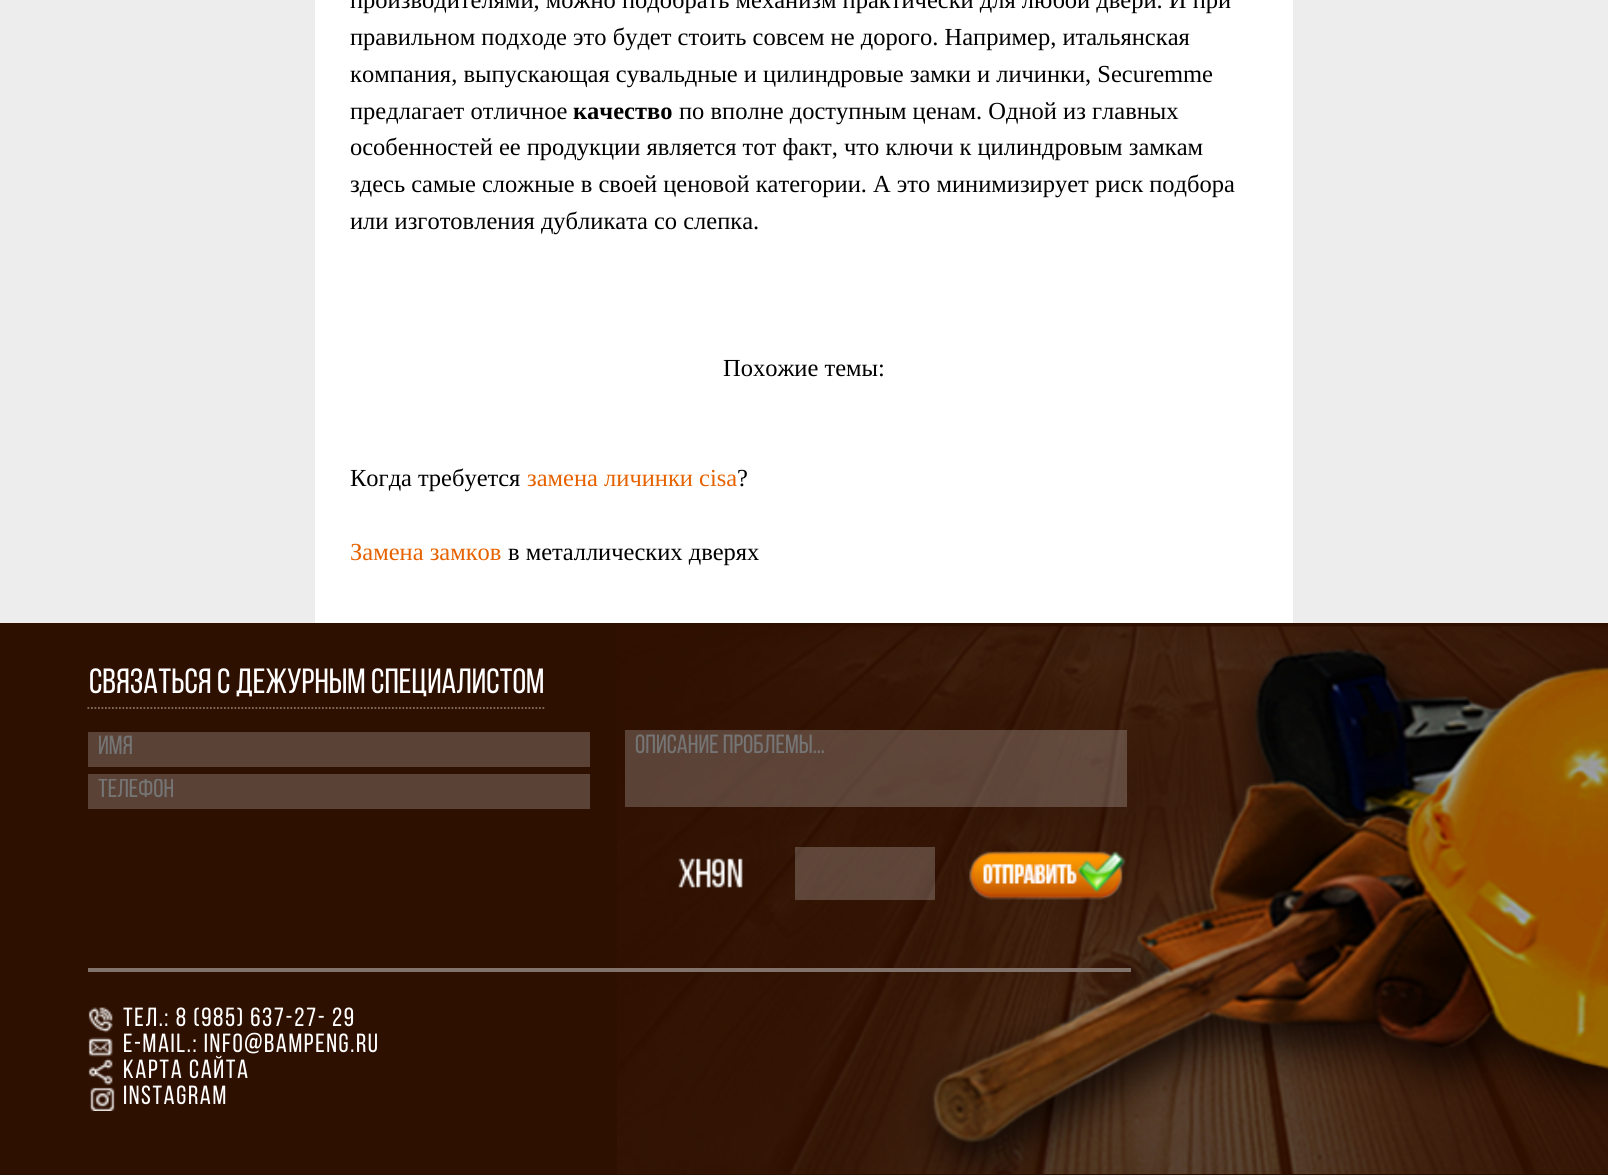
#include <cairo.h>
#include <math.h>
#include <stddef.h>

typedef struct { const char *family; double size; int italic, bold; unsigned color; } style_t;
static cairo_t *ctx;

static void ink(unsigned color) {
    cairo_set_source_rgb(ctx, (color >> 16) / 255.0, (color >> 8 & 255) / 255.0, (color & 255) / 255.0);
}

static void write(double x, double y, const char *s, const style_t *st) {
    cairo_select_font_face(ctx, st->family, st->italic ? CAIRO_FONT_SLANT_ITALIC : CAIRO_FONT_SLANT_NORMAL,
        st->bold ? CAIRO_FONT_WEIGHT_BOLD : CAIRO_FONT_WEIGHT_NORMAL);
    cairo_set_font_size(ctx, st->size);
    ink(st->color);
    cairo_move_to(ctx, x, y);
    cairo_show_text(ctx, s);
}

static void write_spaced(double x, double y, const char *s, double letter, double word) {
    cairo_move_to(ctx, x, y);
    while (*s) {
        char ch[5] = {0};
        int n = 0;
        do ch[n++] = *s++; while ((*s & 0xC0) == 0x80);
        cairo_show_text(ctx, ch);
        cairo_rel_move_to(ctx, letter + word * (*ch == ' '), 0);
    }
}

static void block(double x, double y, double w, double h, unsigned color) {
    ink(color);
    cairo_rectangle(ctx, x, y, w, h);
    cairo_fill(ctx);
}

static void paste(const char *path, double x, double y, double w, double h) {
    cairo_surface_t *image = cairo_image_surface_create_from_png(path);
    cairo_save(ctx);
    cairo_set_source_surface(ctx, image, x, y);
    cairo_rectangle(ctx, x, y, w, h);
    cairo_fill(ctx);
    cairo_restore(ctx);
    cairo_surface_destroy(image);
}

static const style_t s1 = {"Liberation Serif", 24.5, 0, 0, 0x000000};
static const style_t s2 = {"Liberation Serif", 24.5, 0, 1, 0x000000};
static const style_t s3 = {"Liberation Serif", 24.5, 0, 0, 0xe66200};
static const style_t s4 = {"Bebas Neue", 35, 0, 0, 0xffffff};
static const style_t s5 = {"Bebas Neue", 26.25, 0, 0, 0x757575};

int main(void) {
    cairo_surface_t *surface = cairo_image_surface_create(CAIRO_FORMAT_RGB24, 1608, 1175);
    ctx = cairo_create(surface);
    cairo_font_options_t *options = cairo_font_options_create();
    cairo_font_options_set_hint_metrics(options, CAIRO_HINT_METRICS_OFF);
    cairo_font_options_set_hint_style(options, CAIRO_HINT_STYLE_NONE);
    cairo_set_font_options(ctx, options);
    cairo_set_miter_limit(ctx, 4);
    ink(0xffffff);
    cairo_paint(ctx);
    block(0, 0, 315, 623, 0xeeedee);
    write(350, 8, "производителями, можно подобрать механизм практически для любой двери. И при", &s1);
    write(350, 45, "правильном подходе это будет стоить совсем не дорого. Например, итальянская", &s1);
    write(350, 82, "компания, выпускающая сувальдные и цилиндровые замки и личинки, Securemme", &s1);
    write(350, 119, "предлагает отличное", &s1);
    write(573, 119, "качество", &s2);
    write(679, 119, "по вполне доступным ценам. Одной из главных", &s1);
    write(350, 155, "особенностей ее продукции является тот факт, что ключи к цилиндровым замкам", &s1);
    write(350, 192, "здесь самые сложные в своей ценовой категории. А это минимизирует риск подбора", &s1);
    write(350, 229, "или изготовления дубликата со слепка.", &s1);
    write(723, 376, "Похожие темы:", &s1);
    write(350, 486, "Когда требуется", &s1);
    write(527, 486, "замена личинки cisa", &s3);
    write(737, 486, "?", &s1);
    write(350, 560, "Замена замков", &s3);
    write(508, 560, "в металлических дверях", &s1);
    block(1293, 0, 315, 623, 0xeeedee);
    block(0, 623, 1608, 552, 0x2e1001);
    paste("pic1.png", 617, 626, 991, 548);
    cairo_new_path(ctx);
    cairo_move_to(ctx, 87.5, 708);
    cairo_line_to(ctx, 546, 708);
    ink(0x887165);
    cairo_set_line_width(ctx, 1.8);
    cairo_set_dash(ctx, (double[]){1.75, 1.75}, 2, 0);
    cairo_stroke(ctx);
    write(89, 693, "СВЯЗАТЬСЯ С ДЕЖУРНЫМ СПЕЦИАЛИСТОМ", &s4);
    block(88, 968, 1043, 4, 0x82736c);
    block(88, 732, 502, 35, 0x5a4236);
    write(98, 754, "ИМЯ", &s5);
    block(88, 774, 502, 35, 0x5a4236);
    cairo_save(ctx);
    cairo_rectangle(ctx, 98, 779, 481, 26);
    cairo_clip(ctx);
    write(98, 797, "ТЕЛЕФОН", &s5);
    cairo_restore(ctx);
    cairo_set_source_rgba(ctx, 1, 1, 1, 0.21);
    cairo_rectangle(ctx, 625, 730, 502, 77);
    cairo_fill(ctx);
    write(635, 753, "ОПИСАНИЕ ПРОБЛЕМЫ...", &s5);
    paste("pic2.png", 678, 858, 65, 30);
    cairo_set_source_rgba(ctx, 1, 1, 1, 0.21);
    cairo_rectangle(ctx, 795, 847, 140, 53);
    cairo_fill(ctx);
    paste("pic3.png", 969, 851, 157, 49);
    paste("pic4.png", 88, 1007, 25, 26);
    ink(0xffffff);
    write_spaced(123, 1026, "Тел.: 8 (985) 637-27- 29", 1.6, 0);
    paste("pic5.png", 88, 1037, 25, 20);
    write_spaced(123, 1052, "E-MAIL.: info@bampeng.ru", 1.6, 0);
    paste("pic6.png", 88, 1058, 25, 27);
    write_spaced(123, 1078, "КАРТА САЙТА", 1.6, 0);
    paste("pic7.png", 90, 1087, 25, 24);
    write_spaced(123, 1104, "INSTAGRAM", 1.6, 0);
    cairo_surface_write_to_png(surface, "screenshot.png");
    cairo_font_options_destroy(options);
    cairo_destroy(ctx);
    cairo_surface_destroy(surface);
    return 0;
}
